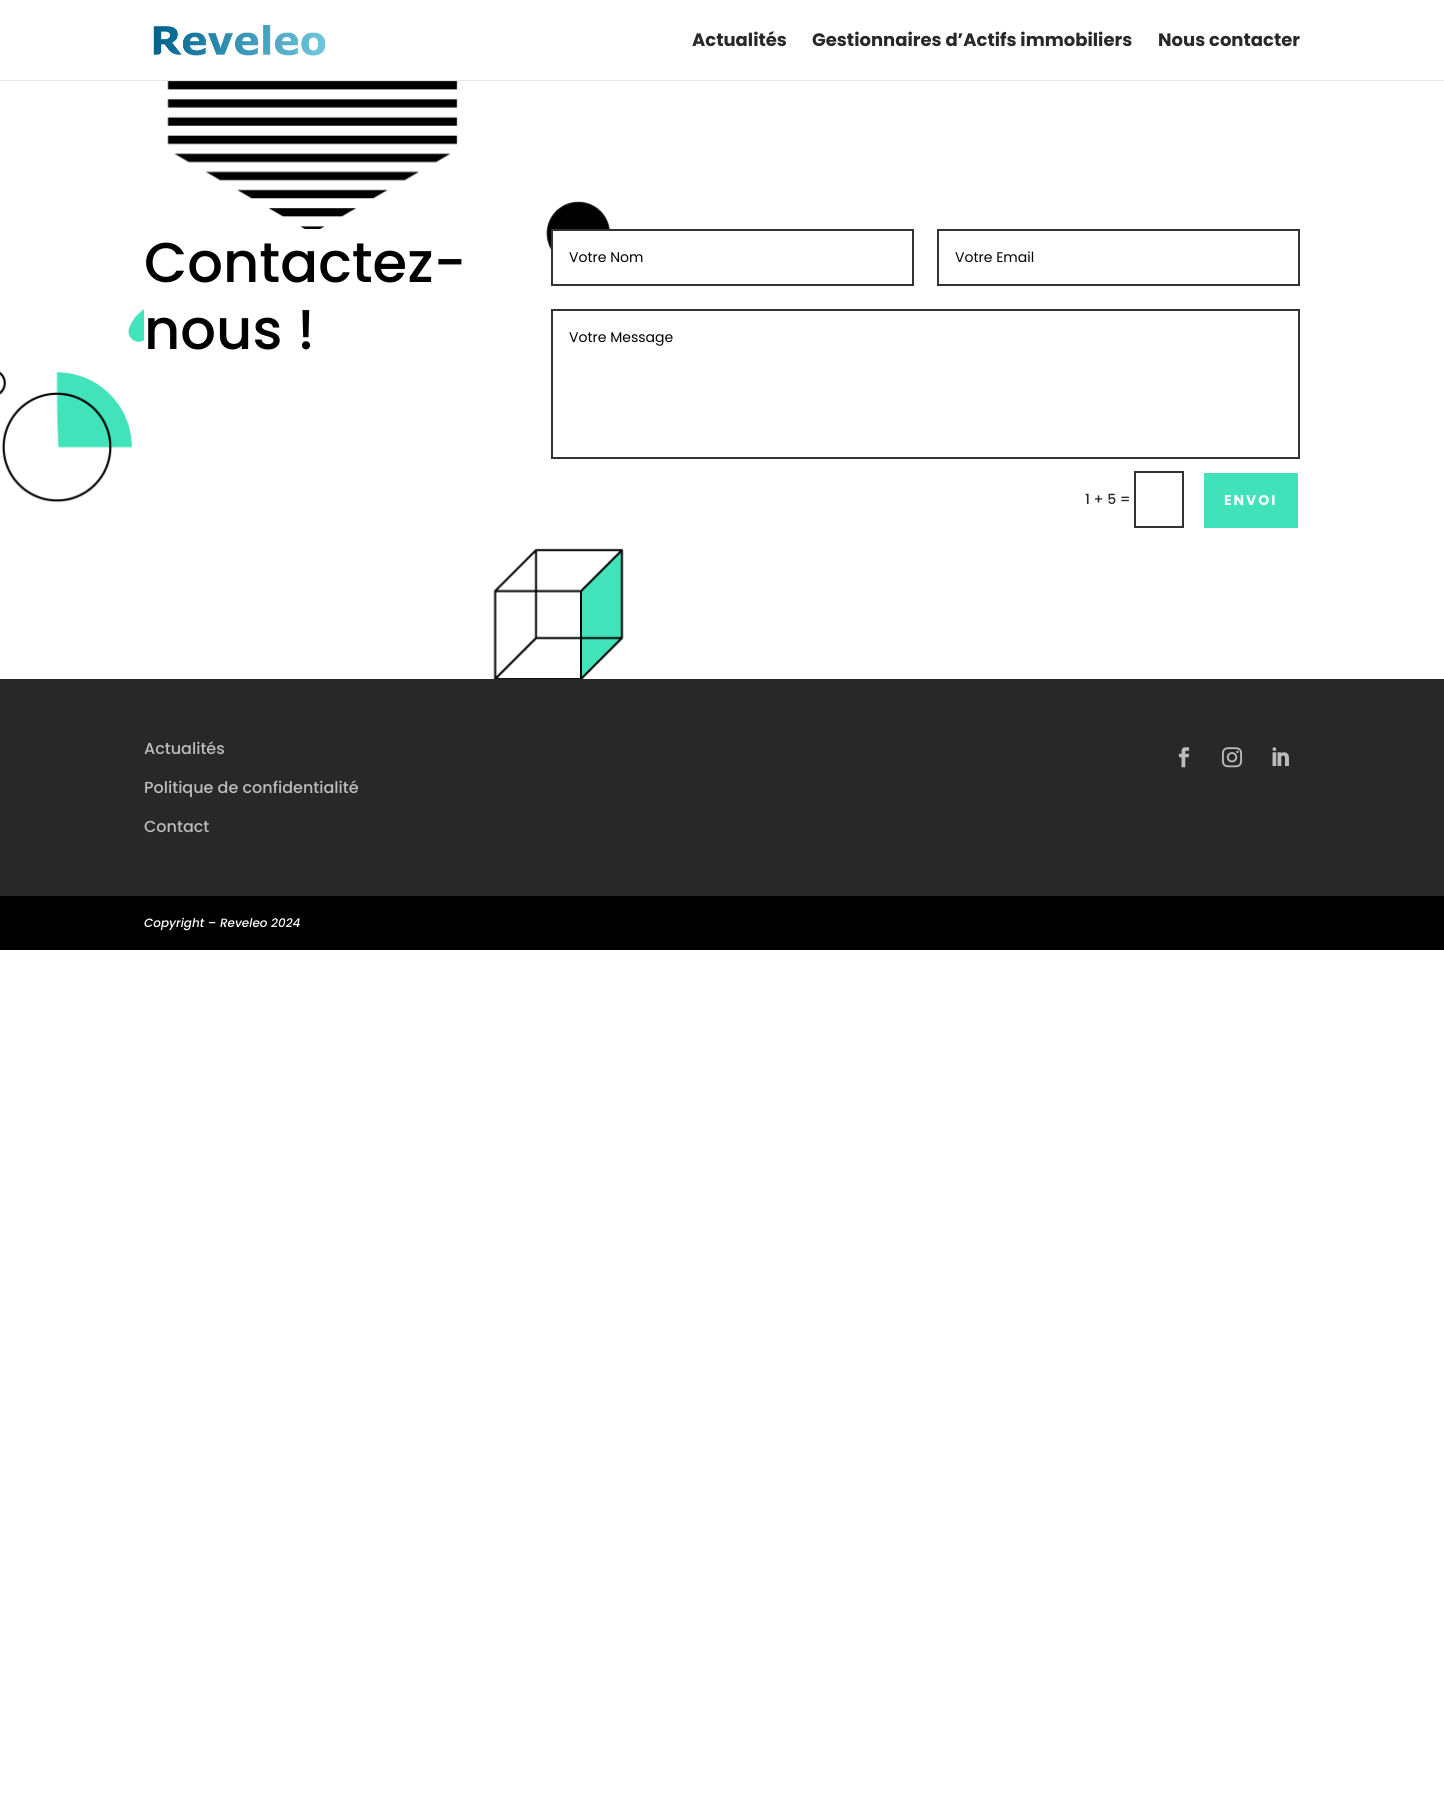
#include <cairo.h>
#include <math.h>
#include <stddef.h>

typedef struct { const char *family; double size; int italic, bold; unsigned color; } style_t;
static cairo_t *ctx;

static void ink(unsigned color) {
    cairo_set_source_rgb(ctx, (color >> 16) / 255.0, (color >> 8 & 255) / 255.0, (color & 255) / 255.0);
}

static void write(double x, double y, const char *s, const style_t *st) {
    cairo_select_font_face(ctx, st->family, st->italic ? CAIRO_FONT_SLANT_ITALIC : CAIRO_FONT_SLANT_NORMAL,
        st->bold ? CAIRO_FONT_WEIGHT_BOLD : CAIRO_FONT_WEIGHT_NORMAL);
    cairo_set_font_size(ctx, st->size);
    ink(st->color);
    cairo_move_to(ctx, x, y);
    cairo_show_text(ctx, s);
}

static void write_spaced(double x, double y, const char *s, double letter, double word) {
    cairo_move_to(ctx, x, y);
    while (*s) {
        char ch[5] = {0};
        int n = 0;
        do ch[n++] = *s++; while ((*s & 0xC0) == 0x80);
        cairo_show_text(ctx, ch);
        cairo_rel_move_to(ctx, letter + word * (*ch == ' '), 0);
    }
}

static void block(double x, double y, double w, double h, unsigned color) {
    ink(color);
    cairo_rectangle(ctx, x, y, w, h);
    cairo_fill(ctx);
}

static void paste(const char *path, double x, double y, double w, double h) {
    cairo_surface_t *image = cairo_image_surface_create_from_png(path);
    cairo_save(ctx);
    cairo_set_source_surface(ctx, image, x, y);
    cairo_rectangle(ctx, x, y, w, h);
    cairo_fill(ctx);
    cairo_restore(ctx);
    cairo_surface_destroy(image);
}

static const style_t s1 = {"Poppins", 18, 0, 1, 0x282828};
static const style_t s2 = {"Poppins Medium", 56, 0, 0, 0x000000};
static const style_t s3 = {"Poppins", 14, 0, 0, 0x000000};
static const style_t s4 = {"Poppins Medium", 14, 0, 0, 0x282828};
static const style_t s5 = {"Poppins Medium", 16, 0, 0, 0xbcbcbc};
static const style_t s6 = {"Poppins Medium", 12, 1, 0, 0xffffff};

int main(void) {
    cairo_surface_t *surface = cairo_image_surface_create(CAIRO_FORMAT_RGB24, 1444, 1808);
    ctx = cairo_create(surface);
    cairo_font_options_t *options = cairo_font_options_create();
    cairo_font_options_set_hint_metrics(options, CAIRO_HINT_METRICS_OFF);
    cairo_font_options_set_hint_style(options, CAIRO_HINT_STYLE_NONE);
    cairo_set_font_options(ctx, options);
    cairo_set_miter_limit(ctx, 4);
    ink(0xffffff);
    cairo_paint(ctx);
    block(0, 80, 1444, 1, 0xe6e6e6);
    paste("pic1.png", 153, 25, 173, 31);
    write(692, 46, "Actualités", &s1);
    write(812, 46, "Gestionnaires d’Actifs immobiliers", &s1);
    write(1158, 46, "Nous contacter", &s1);
    paste("pic2.png", 0, 81, 624, 598);
    block(144, 229, 178, 114, 0xffffff);
    write(144, 282, "Contactez-", &s2);
    write(144, 349, "nous !", &s2);
    block(553, 231, 57, 35, 0xffffff);
    cairo_rectangle(ctx, 552, 230, 361, 55);
    ink(0x333333);
    cairo_stroke(ctx);
    write(569, 262, "Votre Nom", &s3);
    cairo_rectangle(ctx, 938, 230, 361, 55);
    ink(0x333333);
    cairo_stroke(ctx);
    write(955, 262, "Votre Email", &s3);
    cairo_rectangle(ctx, 552, 310, 747, 148);
    ink(0x333333);
    cairo_stroke(ctx);
    write(569, 342, "Votre Message", &s3);
    write(1085, 504, "1 + 5 =", &s4);
    cairo_rectangle(ctx, 1135, 472, 48, 55);
    ink(0x333333);
    cairo_stroke(ctx);
    block(1204, 473, 94, 55, 0x41e2ba);
    cairo_select_font_face(ctx, "Poppins", CAIRO_FONT_SLANT_NORMAL, CAIRO_FONT_WEIGHT_BOLD);
    ink(0xffffff);
    write_spaced(1224, 505, "ENVOI", 2, 0);
    block(0, 679, 1444, 217, 0x282828);
    write(144, 754, "Actualités", &s5);
    write(144, 793, "Politique de confidentialité", &s5);
    write(144, 832, "Contact", &s5);
    paste("pic3.png", 1179, 747, 10, 21);
    paste("pic4.png", 1222, 747, 20, 21);
    paste("pic5.png", 1272, 747, 17, 19);
    block(0, 896, 1444, 54, 0x000000);
    write(144, 927, "Copyright – Reveleo 2024", &s6);
    cairo_surface_write_to_png(surface, "screenshot.png");
    cairo_font_options_destroy(options);
    cairo_destroy(ctx);
    cairo_surface_destroy(surface);
    return 0;
}
